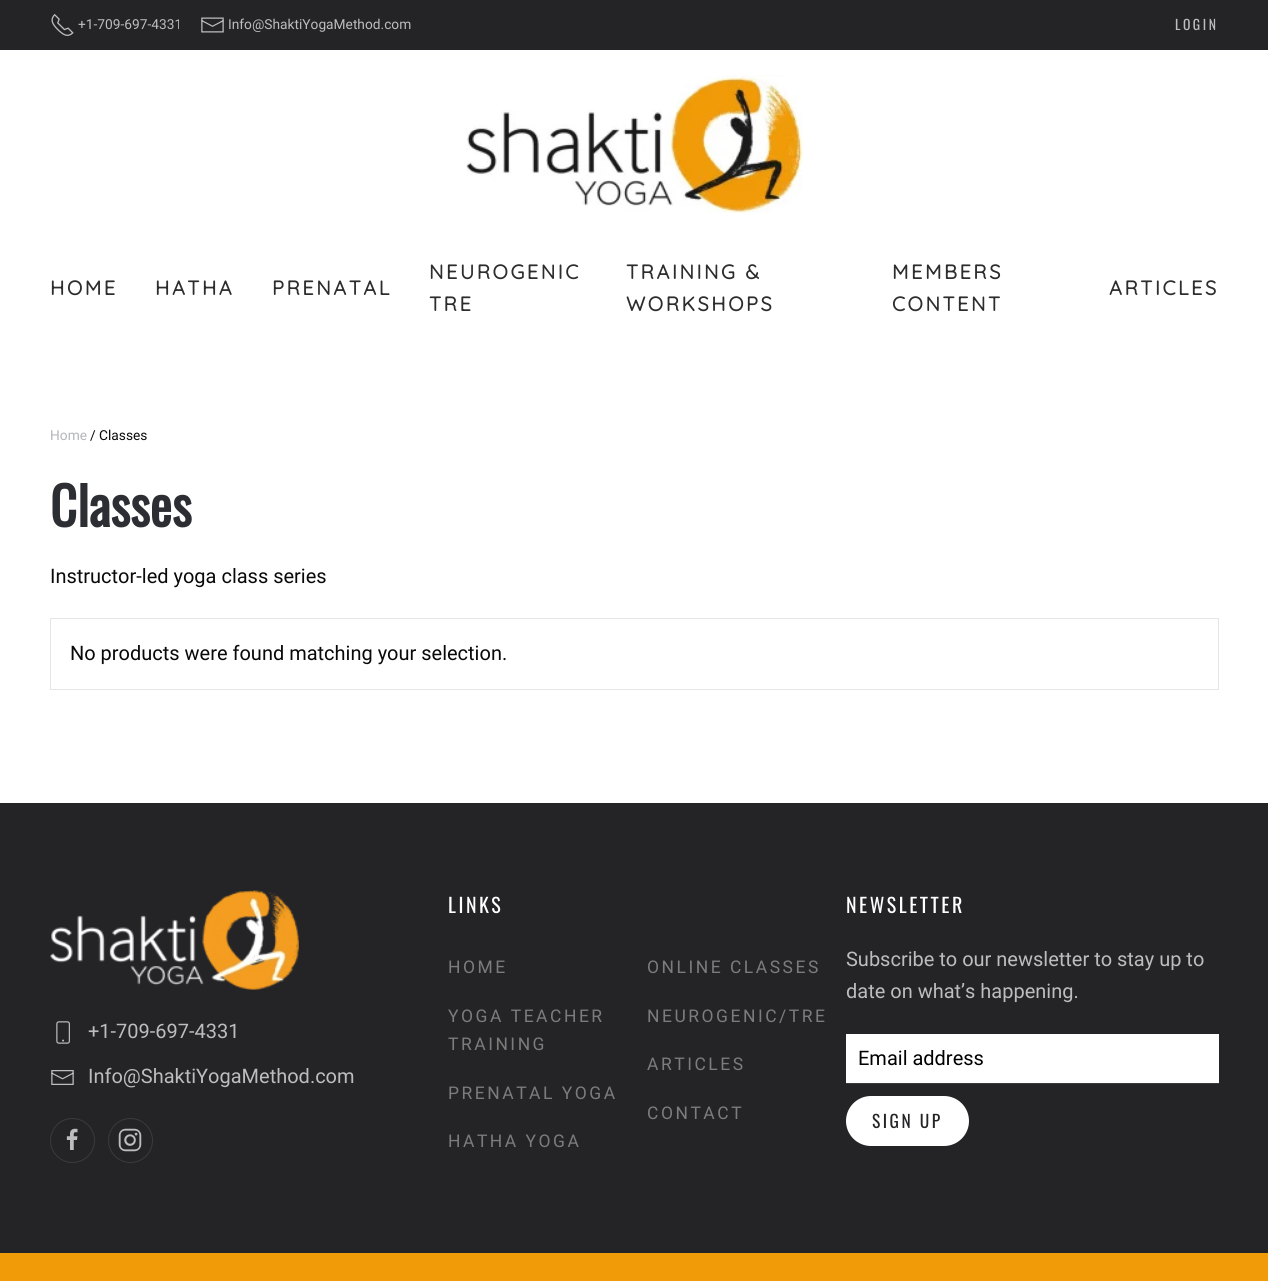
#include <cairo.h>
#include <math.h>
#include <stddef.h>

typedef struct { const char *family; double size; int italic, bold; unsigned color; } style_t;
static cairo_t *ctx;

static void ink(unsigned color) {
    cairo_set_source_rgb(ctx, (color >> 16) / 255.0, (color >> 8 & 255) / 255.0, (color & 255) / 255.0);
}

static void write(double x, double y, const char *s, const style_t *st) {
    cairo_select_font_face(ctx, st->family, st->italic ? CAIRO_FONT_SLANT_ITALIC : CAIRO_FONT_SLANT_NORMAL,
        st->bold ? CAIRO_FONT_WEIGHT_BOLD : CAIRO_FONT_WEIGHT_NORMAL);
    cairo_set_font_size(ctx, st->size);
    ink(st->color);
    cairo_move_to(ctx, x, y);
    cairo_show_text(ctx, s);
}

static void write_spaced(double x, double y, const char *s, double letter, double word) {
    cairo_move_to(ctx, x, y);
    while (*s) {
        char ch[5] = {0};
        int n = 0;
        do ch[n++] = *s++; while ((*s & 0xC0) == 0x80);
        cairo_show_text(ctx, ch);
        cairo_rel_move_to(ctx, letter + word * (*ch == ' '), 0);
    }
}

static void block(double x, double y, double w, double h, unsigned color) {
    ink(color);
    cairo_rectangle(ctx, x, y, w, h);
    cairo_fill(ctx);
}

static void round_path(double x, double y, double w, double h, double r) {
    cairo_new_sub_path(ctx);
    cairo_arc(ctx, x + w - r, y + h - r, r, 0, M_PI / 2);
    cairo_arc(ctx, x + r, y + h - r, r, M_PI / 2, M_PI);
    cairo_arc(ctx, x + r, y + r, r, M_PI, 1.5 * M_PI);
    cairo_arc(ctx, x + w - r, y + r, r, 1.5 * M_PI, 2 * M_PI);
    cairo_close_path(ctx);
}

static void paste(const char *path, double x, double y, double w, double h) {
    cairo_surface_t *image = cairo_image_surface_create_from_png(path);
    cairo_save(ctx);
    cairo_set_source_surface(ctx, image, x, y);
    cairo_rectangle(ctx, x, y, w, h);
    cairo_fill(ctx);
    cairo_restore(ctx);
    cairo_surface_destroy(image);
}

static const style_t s1 = {"Roboto", 13.75, 0, 0, 0xbdbdbe};
static const style_t s2 = {"Roboto", 13.75, 0, 0, 0xb4b5ba};
static const style_t s3 = {"Roboto", 13.75, 0, 0, 0x090909};
static const style_t s4 = {"Oswald", 52.5, 0, 1, 0x2d2e33};
static const style_t s5 = {"Roboto", 20, 0, 0, 0x090909};
static const style_t s6 = {"Roboto", 20, 0, 0, 0xbdbdbe};
static const style_t s7 = {"Roboto", 20, 0, 0, 0x000000};

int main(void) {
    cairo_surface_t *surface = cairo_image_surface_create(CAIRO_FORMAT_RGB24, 1268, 1281);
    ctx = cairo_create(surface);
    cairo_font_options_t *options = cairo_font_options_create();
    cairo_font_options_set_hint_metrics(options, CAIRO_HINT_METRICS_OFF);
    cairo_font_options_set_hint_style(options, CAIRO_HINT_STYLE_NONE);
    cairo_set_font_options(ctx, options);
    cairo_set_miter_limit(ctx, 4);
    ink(0xffffff);
    cairo_paint(ctx);
    block(0, 0, 1268, 50, 0x242427);
    paste("pic1.png", 51, 14, 23, 22);
    write(78, 29, "+1-709-697-4331", &s1);
    paste("pic2.png", 201, 17, 23, 16);
    write(228, 29, "Info@ShaktiYogaMethod.com", &s1);
    cairo_select_font_face(ctx, "Oswald", CAIRO_FONT_SLANT_NORMAL, CAIRO_FONT_WEIGHT_NORMAL);
    write_spaced(1175, 30, "LOGIN", 2.5, 0);
    paste("pic3.png", 466, 75, 337, 138);
    cairo_select_font_face(ctx, "Quicksand", CAIRO_FONT_SLANT_NORMAL, CAIRO_FONT_WEIGHT_BOLD);
    cairo_set_font_size(ctx, 20);
    ink(0x2d2d2d);
    write_spaced(50, 295, "HOME", 2.5, 0);
    write_spaced(155, 295, "HATHA", 2.5, 0);
    write_spaced(272, 295, "PRENATAL", 2.5, 0);
    write_spaced(429, 279, "NEUROGENIC", 2.5, 0);
    write_spaced(429, 311, "TRE", 2.5, 0);
    write_spaced(626, 279, "TRAINING &", 2.5, 0);
    write_spaced(626, 311, "WORKSHOPS", 2.5, 0);
    write_spaced(892, 279, "MEMBERS", 2.5, 0);
    write_spaced(892, 311, "CONTENT", 2.5, 0);
    write_spaced(1109, 295, "ARTICLES", 2.5, 0);
    write(50, 440, "Home", &s2);
    write(90, 440, "/ Classes", &s3);
    write(50, 527, "Classes", &s4);
    write(50, 583, "Instructor-led yoga class series", &s5);
    cairo_rectangle(ctx, 50.5, 618.5, 1168, 71);
    ink(0xe5e5e7);
    cairo_set_line_width(ctx, 1);
    cairo_stroke(ctx);
    write(70, 660, "No products were found matching your selection.", &s5);
    block(0, 803, 1268, 450, 0x242427);
    paste("pic4.png", 50, 890, 249, 100);
    paste("pic5.png", 56, 1021, 14, 23);
    write(88, 1038, "+1-709-697-4331", &s6);
    paste("pic6.png", 51, 1070, 23, 15);
    write(88, 1083, "Info@ShaktiYogaMethod.com", &s6);
    cairo_new_path(ctx);
    cairo_arc(ctx, 72.5, 1140.5, 22, 0, 2 * M_PI);
    ink(0x3a3a3d);
    cairo_stroke(ctx);
    paste("pic7.png", 66, 1128, 12, 22);
    cairo_arc(ctx, 130.5, 1140.5, 22, 0, 2 * M_PI);
    cairo_stroke(ctx);
    paste("pic8.png", 118, 1128, 24, 24);
    cairo_select_font_face(ctx, "Oswald", CAIRO_FONT_SLANT_NORMAL, CAIRO_FONT_WEIGHT_NORMAL);
    ink(0xffffff);
    write_spaced(448, 913, "LINKS", 2.5, 0);
    cairo_select_font_face(ctx, "Roboto", CAIRO_FONT_SLANT_NORMAL, CAIRO_FONT_WEIGHT_NORMAL);
    cairo_set_font_size(ctx, 17.5);
    ink(0x7c7c7d);
    write_spaced(448, 973, "HOME", 2.5, 0);
    write_spaced(448, 1022, "YOGA TEACHER", 2.5, 0);
    write_spaced(448, 1050, "TRAINING", 2.5, 0);
    write_spaced(448, 1099, "PRENATAL YOGA", 2.5, 0);
    write_spaced(448, 1147, "HATHA YOGA", 2.5, 0);
    write_spaced(647, 973, "ONLINE CLASSES", 2.5, 0);
    write_spaced(647, 1022, "NEUROGENIC/TRE", 2.5, 0);
    write_spaced(647, 1070, "ARTICLES", 2.5, 0);
    write_spaced(647, 1119, "CONTACT", 2.5, 0);
    cairo_select_font_face(ctx, "Oswald", CAIRO_FONT_SLANT_NORMAL, CAIRO_FONT_WEIGHT_NORMAL);
    cairo_set_font_size(ctx, 20);
    ink(0xffffff);
    write_spaced(846, 913, "NEWSLETTER", 2.5, 0);
    write(846, 966, "Subscribe to our newsletter to stay up to", &s6);
    write(846, 998, "date on what’s happening.", &s6);
    block(846, 1034, 373, 49, 0xffffff);
    block(846, 1083, 373, 1, 0x3a3a3d);
    write(858, 1065, "Email address", &s7);
    ink(0xffffff);
    round_path(846, 1096, 123, 50, 25);
    cairo_fill(ctx);
    cairo_select_font_face(ctx, "Oswald", CAIRO_FONT_SLANT_NORMAL, CAIRO_FONT_WEIGHT_NORMAL);
    cairo_set_font_size(ctx, 17.5);
    ink(0x242427);
    write_spaced(872, 1128, "SIGN UP", 2.5, 0);
    block(0, 1253, 1268, 28, 0xf19b08);
    cairo_surface_write_to_png(surface, "screenshot.png");
    cairo_font_options_destroy(options);
    cairo_destroy(ctx);
    cairo_surface_destroy(surface);
    return 0;
}
